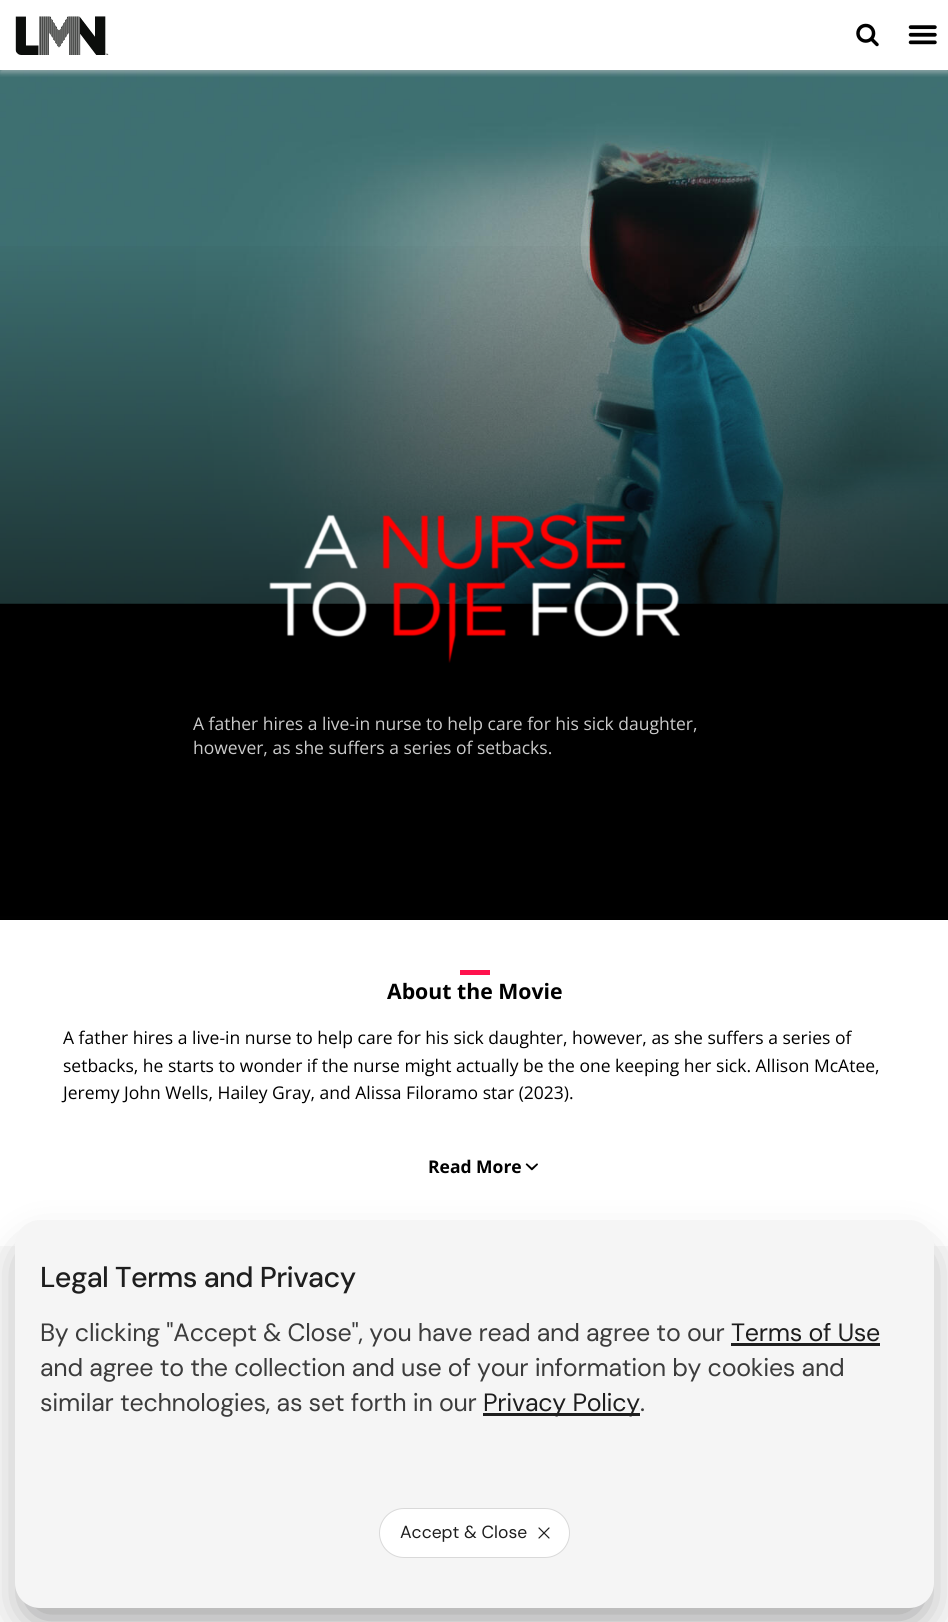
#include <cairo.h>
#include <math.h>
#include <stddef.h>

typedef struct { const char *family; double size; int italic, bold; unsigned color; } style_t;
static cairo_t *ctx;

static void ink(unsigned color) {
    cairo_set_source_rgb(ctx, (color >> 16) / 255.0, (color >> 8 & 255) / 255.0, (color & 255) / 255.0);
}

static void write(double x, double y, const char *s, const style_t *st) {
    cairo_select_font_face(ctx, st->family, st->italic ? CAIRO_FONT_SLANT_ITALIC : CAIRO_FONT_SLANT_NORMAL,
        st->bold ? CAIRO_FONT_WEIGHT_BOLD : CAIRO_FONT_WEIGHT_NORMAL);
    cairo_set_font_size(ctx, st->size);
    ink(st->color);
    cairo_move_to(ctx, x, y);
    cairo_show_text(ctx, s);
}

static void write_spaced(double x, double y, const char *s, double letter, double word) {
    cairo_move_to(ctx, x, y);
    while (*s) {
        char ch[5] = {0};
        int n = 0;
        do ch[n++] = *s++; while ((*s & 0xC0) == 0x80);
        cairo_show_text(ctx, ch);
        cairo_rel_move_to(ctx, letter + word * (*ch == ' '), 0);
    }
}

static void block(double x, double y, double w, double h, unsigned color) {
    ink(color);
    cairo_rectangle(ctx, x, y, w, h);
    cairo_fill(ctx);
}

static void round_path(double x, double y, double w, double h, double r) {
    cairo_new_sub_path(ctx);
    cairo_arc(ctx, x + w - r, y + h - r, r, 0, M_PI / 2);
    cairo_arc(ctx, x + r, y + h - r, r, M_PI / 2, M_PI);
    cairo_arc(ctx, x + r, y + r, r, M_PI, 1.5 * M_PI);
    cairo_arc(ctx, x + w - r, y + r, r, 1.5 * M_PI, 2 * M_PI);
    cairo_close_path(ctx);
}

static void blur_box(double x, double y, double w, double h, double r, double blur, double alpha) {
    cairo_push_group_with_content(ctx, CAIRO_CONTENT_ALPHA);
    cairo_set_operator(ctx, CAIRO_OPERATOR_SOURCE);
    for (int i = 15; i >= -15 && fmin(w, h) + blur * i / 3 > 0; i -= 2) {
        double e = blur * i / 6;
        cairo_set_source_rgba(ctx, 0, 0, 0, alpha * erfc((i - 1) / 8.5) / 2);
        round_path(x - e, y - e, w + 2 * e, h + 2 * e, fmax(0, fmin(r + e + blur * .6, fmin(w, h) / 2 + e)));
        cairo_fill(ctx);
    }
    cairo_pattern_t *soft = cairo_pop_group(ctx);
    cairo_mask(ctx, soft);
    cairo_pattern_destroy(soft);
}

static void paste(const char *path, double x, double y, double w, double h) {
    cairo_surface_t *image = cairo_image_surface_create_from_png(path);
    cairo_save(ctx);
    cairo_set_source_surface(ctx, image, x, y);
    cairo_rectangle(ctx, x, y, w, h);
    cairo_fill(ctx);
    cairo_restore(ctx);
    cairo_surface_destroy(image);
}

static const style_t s1 = {"Open Sans", 17.5, 0, 0, 0xcbcbcb};
static const style_t s2 = {"Open Sans", 21.25, 0, 1, 0x000000};
static const style_t s3 = {"Open Sans", 17.5, 0, 0, 0x000000};
static const style_t s4 = {"Open Sans", 17.5, 0, 1, 0x000000};
static const style_t s5 = {"DM Sans", 17.5, 0, 0, 0x1e1e1e};

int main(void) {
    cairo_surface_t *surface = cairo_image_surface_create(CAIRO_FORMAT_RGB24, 948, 1622);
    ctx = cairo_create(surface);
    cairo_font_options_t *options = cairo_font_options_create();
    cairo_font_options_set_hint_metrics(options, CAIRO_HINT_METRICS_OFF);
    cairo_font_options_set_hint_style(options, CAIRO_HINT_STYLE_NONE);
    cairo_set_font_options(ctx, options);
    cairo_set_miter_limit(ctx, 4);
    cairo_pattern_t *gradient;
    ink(0xffffff);
    cairo_paint(ctx);
    block(0, 603, 948, 313, 0x000000);
    paste("pic4.png", 0, 70, 948, 534);
    cairo_save(ctx);
    cairo_rectangle(ctx, 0, 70, 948, 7);
    cairo_clip(ctx);
    ink(0xd8d8d8);
    blur_box(0, 3, 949, 70, 0, 2.5, 0.5);
    cairo_restore(ctx);
    paste("pic1.png", 15, 16, 94, 39);
    paste("pic2.png", 856, 23, 23, 24);
    paste("pic3.png", 908, 25, 29, 20);
    gradient = cairo_pattern_create_linear(474, 920, 474, 70);
    cairo_pattern_add_color_stop_rgba(gradient, 0, 0, 0, 0, 1);
    cairo_pattern_add_color_stop_rgba(gradient, 0.81, 0, 0, 0, 0);
    cairo_set_source(ctx, gradient);
    cairo_pattern_destroy(gradient);
    cairo_rectangle(ctx, 0, 246, 948, 674);
    cairo_fill(ctx);
    paste("pic5.png", 269, 514, 411, 149);
    write(193, 730, "A father hires a live-in nurse to help care for his sick daughter,", &s1);
    write(193, 754, "however, as she suffers a series of setbacks.", &s1);
    block(460, 970, 30, 5, 0xff124d);
    write(387, 999, "About the Movie", &s2);
    write(63, 1044, "A father hires a live-in nurse to help care for his sick daughter, however, as she suffers a series of", &s3);
    write(63, 1072, "setbacks, he starts to wonder if the nurse might actually be the one keeping her sick. Allison McAtee,", &s3);
    write(63, 1099, "Jeremy John Wells, Hailey Gray, and Alissa Filoramo star (2023).", &s3);
    write(428, 1173, "Read More", &s4);
    paste("pic6.png", 525, 1163, 13, 8);
    block(0, 1246, 948, 376, 0xf8f8f8);
    ink(0x0c0c0d);
    blur_box(25, 1250, 899, 368, 15, 20, 0.4);
    ink(0xf5f5f5);
    round_path(15, 1220, 919, 388, 25);
    cairo_fill(ctx);
    cairo_select_font_face(ctx, "DM Sans Medium", CAIRO_FONT_SLANT_NORMAL, CAIRO_FONT_WEIGHT_NORMAL);
    cairo_set_font_size(ctx, 28.75);
    ink(0x1e1e1e);
    write_spaced(40, 1287, "Legal Terms and Privacy", -0.6, 0);
    cairo_select_font_face(ctx, "DM Sans", CAIRO_FONT_SLANT_NORMAL, CAIRO_FONT_WEIGHT_NORMAL);
    cairo_set_font_size(ctx, 25);
    ink(0x3c3c3c);
    write_spaced(40, 1341, "By clicking \"Accept & Close\", you have read and agree to our", -0.25, 0);
    ink(0x1e1e1e);
    write_spaced(731, 1341, "Terms of Use", -0.25, 0);
    block(731, 1343, 149, 3, 0x1e1e1e);
    ink(0x3c3c3c);
    write_spaced(40, 1376, "and agree to the collection and use of your information by cookies and", -0.25, 0);
    write_spaced(40, 1411, "similar technologies, as set forth in our", -0.25, 0);
    block(483, 1413, 157, 3, 0x1e1e1e);
    write_spaced(483, 1411, "Privacy Policy", -0.25, 0);
    ink(0x3c3c3c);
    write_spaced(640, 1411, ".", -0.25, 0);
    ink(0xffffff);
    round_path(379.5, 1508.5, 190, 49, 24.5);
    cairo_fill_preserve(ctx);
    ink(0xd9d9d9);
    cairo_set_line_width(ctx, 1);
    cairo_stroke(ctx);
    write(400, 1538, "Accept & Close", &s5);
    cairo_new_path(ctx);
    cairo_move_to(ctx, 549, 1528);
    cairo_line_to(ctx, 539, 1538);
    cairo_move_to(ctx, 539, 1528);
    cairo_line_to(ctx, 549, 1538);
    cairo_set_line_width(ctx, 1.2);
    cairo_set_line_cap(ctx, CAIRO_LINE_CAP_ROUND);
    cairo_set_line_join(ctx, CAIRO_LINE_JOIN_ROUND);
    cairo_stroke(ctx);
    cairo_surface_write_to_png(surface, "screenshot.png");
    cairo_font_options_destroy(options);
    cairo_destroy(ctx);
    cairo_surface_destroy(surface);
    return 0;
}
